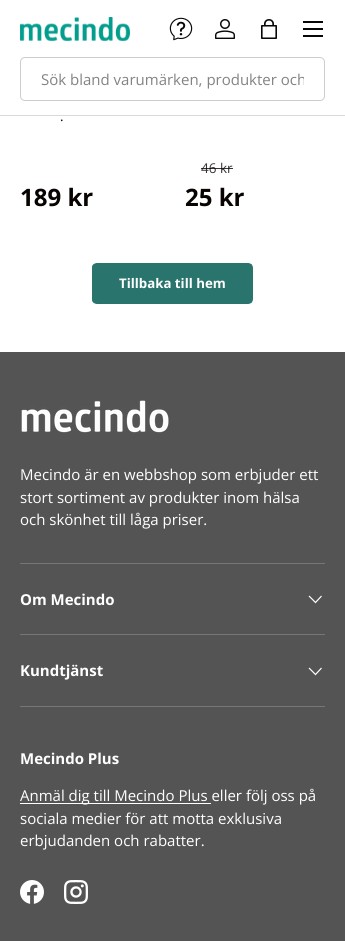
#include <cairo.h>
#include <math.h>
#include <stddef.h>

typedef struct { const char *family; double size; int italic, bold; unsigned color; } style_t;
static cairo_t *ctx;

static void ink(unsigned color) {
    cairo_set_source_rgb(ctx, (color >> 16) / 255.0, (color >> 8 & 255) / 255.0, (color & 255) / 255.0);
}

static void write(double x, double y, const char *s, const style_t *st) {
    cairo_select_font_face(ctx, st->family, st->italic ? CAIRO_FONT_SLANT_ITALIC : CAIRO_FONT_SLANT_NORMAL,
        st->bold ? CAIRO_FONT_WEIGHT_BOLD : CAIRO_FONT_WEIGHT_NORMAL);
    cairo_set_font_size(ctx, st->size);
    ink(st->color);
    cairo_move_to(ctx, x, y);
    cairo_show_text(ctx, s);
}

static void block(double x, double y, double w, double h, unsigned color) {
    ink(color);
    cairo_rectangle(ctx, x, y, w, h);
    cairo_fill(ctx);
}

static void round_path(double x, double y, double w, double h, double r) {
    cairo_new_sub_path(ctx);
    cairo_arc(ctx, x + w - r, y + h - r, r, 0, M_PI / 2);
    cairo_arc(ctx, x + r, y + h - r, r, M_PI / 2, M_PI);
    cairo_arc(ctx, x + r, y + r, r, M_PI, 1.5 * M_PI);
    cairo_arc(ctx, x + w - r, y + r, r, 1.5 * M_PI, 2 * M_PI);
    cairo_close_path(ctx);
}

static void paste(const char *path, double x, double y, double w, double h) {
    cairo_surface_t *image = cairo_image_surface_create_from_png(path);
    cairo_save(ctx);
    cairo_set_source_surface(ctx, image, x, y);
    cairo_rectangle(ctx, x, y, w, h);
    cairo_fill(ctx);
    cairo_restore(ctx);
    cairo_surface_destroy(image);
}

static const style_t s1 = {"Open Sans", 15, 0, 0, 0x838383};
static const style_t s2 = {"Open Sans", 13.25, 0, 0, 0x090302};
static const style_t s3 = {"Open Sans", 24, 0, 1, 0x090302};
static const style_t s4 = {"Open Sans", 13.5, 0, 0, 0x3a3535};
static const style_t s5 = {"Open Sans", 13.25, 0, 1, 0xffffff};
static const style_t s6 = {"Open Sans", 15, 0, 0, 0xffffff};
static const style_t s7 = {"Open Sans", 15, 0, 1, 0xffffff};

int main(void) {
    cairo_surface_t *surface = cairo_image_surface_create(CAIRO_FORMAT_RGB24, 345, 941);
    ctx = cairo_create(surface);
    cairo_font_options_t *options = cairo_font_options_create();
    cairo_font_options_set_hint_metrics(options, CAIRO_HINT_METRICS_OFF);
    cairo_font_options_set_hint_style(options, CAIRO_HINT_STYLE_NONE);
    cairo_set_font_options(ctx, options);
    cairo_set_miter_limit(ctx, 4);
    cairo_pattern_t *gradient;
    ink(0xffffff);
    cairo_paint(ctx);
    block(0, 115, 345, 1, 0xdadada);
    paste("pic1.png", 20, 17, 110, 24);
    paste("pic2.png", 169, 17, 24, 24);
    paste("pic3.png", 215, 19, 20, 20);
    paste("pic4.png", 261, 19, 16, 20);
    block(303, 21, 20, 2, 0x070707);
    block(303, 35, 20, 2, 0x070707);
    block(303, 28, 20, 2, 0x070707);
    round_path(20.5, 57.5, 304, 43, 4.5);
    ink(0xcdcdcd);
    cairo_set_line_width(ctx, 1);
    cairo_stroke(ctx);
    cairo_save(ctx);
    cairo_rectangle(ctx, 41, 69, 263, 20);
    cairo_clip(ctx);
    write(41, 85, "Sök bland varumärken, produkter och", &s1);
    cairo_restore(ctx);
    write(60, 121, ".", &s2);
    write(20, 206, "189 kr", &s3);
    write(201, 173, "46 kr", &s4);
    cairo_set_source_rgba(ctx, 0.035, 0.012, 0.008, 0.8);
    cairo_rectangle(ctx, 201, 168, 32, 1);
    cairo_fill(ctx);
    write(185, 206, "25 kr", &s3);
    cairo_save(ctx);
    round_path(92, 263, 161, 41, 5);
    cairo_clip(ctx);
    gradient = cairo_pattern_create_linear(-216, 226, 243, 341);
    cairo_pattern_add_color_stop_rgba(gradient, 0.6, 0.306, 0.576, 0.553, 1);
    cairo_pattern_add_color_stop_rgba(gradient, 0.6, 0.161, 0.455, 0.427, 1);
    cairo_pattern_add_color_stop_rgba(gradient, 1, 0.161, 0.455, 0.427, 1);
    cairo_set_source(ctx, gradient);
    cairo_pattern_destroy(gradient);
    cairo_rectangle(ctx, 92, 264, 160, 39);
    cairo_fill(ctx);
    cairo_restore(ctx);
    round_path(92.5, 263.5, 160, 40, 4.5);
    ink(0x29746d);
    cairo_stroke(ctx);
    write(119, 288, "Tillbaka till hem", &s5);
    block(0, 352, 345, 589, 0x545454);
    paste("pic5.png", 21, 400, 148, 33);
    write(20, 480, "Mecindo är en webbshop som erbjuder ett", &s6);
    write(20, 503, "stort sortiment av produkter inom hälsa", &s6);
    write(20, 525, "och skönhet till låga priser.", &s6);
    block(20, 563, 305, 1, 0x767676);
    block(20, 634, 305, 1, 0x767676);
    write(20, 605, "Om Mecindo", &s7);
    cairo_new_path(ctx);
    cairo_move_to(ctx, 321.5, 596);
    cairo_line_to(ctx, 315.5, 602.5);
    cairo_line_to(ctx, 309, 596);
    cairo_set_line_width(ctx, 1.2);
    cairo_stroke(ctx);
    block(20, 706, 305, 1, 0x767676);
    write(20, 676, "Kundtjänst", &s7);
    cairo_new_path(ctx);
    cairo_move_to(ctx, 321.5, 668);
    cairo_line_to(ctx, 315.5, 674.5);
    cairo_line_to(ctx, 309, 668);
    cairo_stroke(ctx);
    write(20, 764, "Mecindo Plus", &s7);
    block(20, 803, 191, 1, 0xffffff);
    write(20, 801, "Anmäl dig till Mecindo Plus eller följ oss på", &s6);
    write(20, 824, "sociala medier för att motta exklusiva", &s6);
    write(20, 846, "erbjudanden och rabatter.", &s6);
    paste("pic6.png", 20, 880, 24, 24);
    paste("pic7.png", 64, 880, 24, 24);
    cairo_surface_write_to_png(surface, "screenshot.png");
    cairo_font_options_destroy(options);
    cairo_destroy(ctx);
    cairo_surface_destroy(surface);
    return 0;
}
